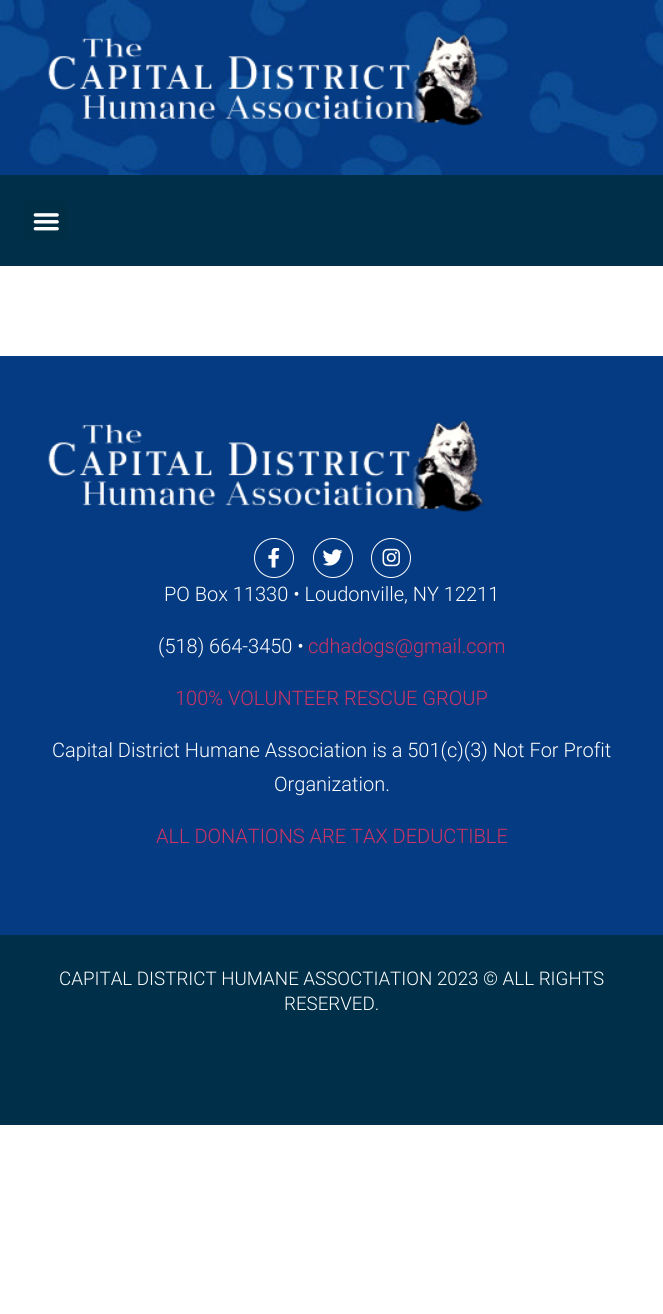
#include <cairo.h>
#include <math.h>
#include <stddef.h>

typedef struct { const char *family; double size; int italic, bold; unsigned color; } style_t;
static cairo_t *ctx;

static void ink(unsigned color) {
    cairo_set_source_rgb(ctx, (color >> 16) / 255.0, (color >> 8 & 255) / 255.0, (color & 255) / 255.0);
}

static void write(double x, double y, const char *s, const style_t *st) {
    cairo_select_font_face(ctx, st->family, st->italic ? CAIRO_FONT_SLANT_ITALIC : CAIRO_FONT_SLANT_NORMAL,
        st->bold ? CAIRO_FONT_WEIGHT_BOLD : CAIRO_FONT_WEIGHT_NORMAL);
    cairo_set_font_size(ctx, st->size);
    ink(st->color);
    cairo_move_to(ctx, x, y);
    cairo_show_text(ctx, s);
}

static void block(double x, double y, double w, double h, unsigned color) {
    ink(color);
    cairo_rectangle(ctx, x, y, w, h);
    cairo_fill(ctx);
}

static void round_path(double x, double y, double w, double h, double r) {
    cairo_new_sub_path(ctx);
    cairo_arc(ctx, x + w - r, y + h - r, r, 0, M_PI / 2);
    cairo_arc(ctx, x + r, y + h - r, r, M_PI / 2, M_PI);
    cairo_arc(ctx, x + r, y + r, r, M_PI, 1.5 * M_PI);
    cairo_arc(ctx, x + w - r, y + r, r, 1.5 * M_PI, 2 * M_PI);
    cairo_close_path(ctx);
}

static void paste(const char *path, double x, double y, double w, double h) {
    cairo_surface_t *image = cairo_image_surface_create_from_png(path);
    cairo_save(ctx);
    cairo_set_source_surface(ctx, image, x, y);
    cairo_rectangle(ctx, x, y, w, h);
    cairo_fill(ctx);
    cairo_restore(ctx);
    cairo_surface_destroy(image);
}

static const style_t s1 = {"Roboto Light", 20, 0, 0, 0xffffff};
static const style_t s2 = {"Roboto Light", 20, 0, 0, 0xcc3366};
static const style_t s3 = {"Roboto Light", 18.75, 0, 0, 0xffffff};

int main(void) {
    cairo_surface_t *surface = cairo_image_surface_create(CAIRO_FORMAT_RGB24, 663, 1314);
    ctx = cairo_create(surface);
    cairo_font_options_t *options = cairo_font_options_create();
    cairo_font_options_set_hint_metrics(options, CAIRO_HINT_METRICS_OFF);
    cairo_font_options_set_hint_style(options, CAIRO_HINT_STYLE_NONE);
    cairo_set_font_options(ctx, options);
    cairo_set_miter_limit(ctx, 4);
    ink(0xffffff);
    cairo_paint(ctx);
    paste("pic1.png", 0, 0, 663, 175);
    paste("pic2.png", 48, 34, 436, 92);
    block(0, 175, 663, 91, 0x003049);
    ink(0x002e45);
    round_path(25, 200, 41, 41, 4);
    cairo_fill(ctx);
    paste("pic3.png", 33, 213, 26, 18);
    block(0, 356, 663, 579, 0x053b82);
    paste("pic4.png", 48, 420, 436, 92);
    cairo_arc(ctx, 274, 558, 19.5, 0, 2 * M_PI);
    ink(0xffffff);
    cairo_set_line_width(ctx, 1);
    cairo_stroke(ctx);
    paste("pic5.png", 268, 548, 12, 20);
    cairo_arc(ctx, 333, 558, 19.5, 0, 2 * M_PI);
    cairo_stroke(ctx);
    paste("pic6.png", 323, 549, 20, 17);
    cairo_arc(ctx, 391, 558, 19.5, 0, 2 * M_PI);
    cairo_stroke(ctx);
    paste("pic7.png", 382, 548, 18, 19);
    write(164, 601, "PO Box 11330 • Loudonville, NY 12211", &s1);
    write(158, 653, "(518) 664-3450 •", &s1);
    write(308, 653, "cdhadogs@gmail.com", &s2);
    write(175, 705, "100% VOLUNTEER RESCUE GROUP", &s2);
    write(52, 757, "Capital District Humane Association is a 501(c)(3) Not For Profit", &s1);
    write(274, 791, "Organization.", &s1);
    write(156, 843, "ALL DONATIONS ARE TAX DEDUCTIBLE", &s2);
    block(0, 935, 663, 190, 0x003049);
    write(59, 985, "CAPITAL DISTRICT HUMANE ASSOCTIATION 2023 © ALL RIGHTS", &s3);
    write(284, 1010, "RESERVED.", &s3);
    cairo_surface_write_to_png(surface, "screenshot.png");
    cairo_font_options_destroy(options);
    cairo_destroy(ctx);
    cairo_surface_destroy(surface);
    return 0;
}
